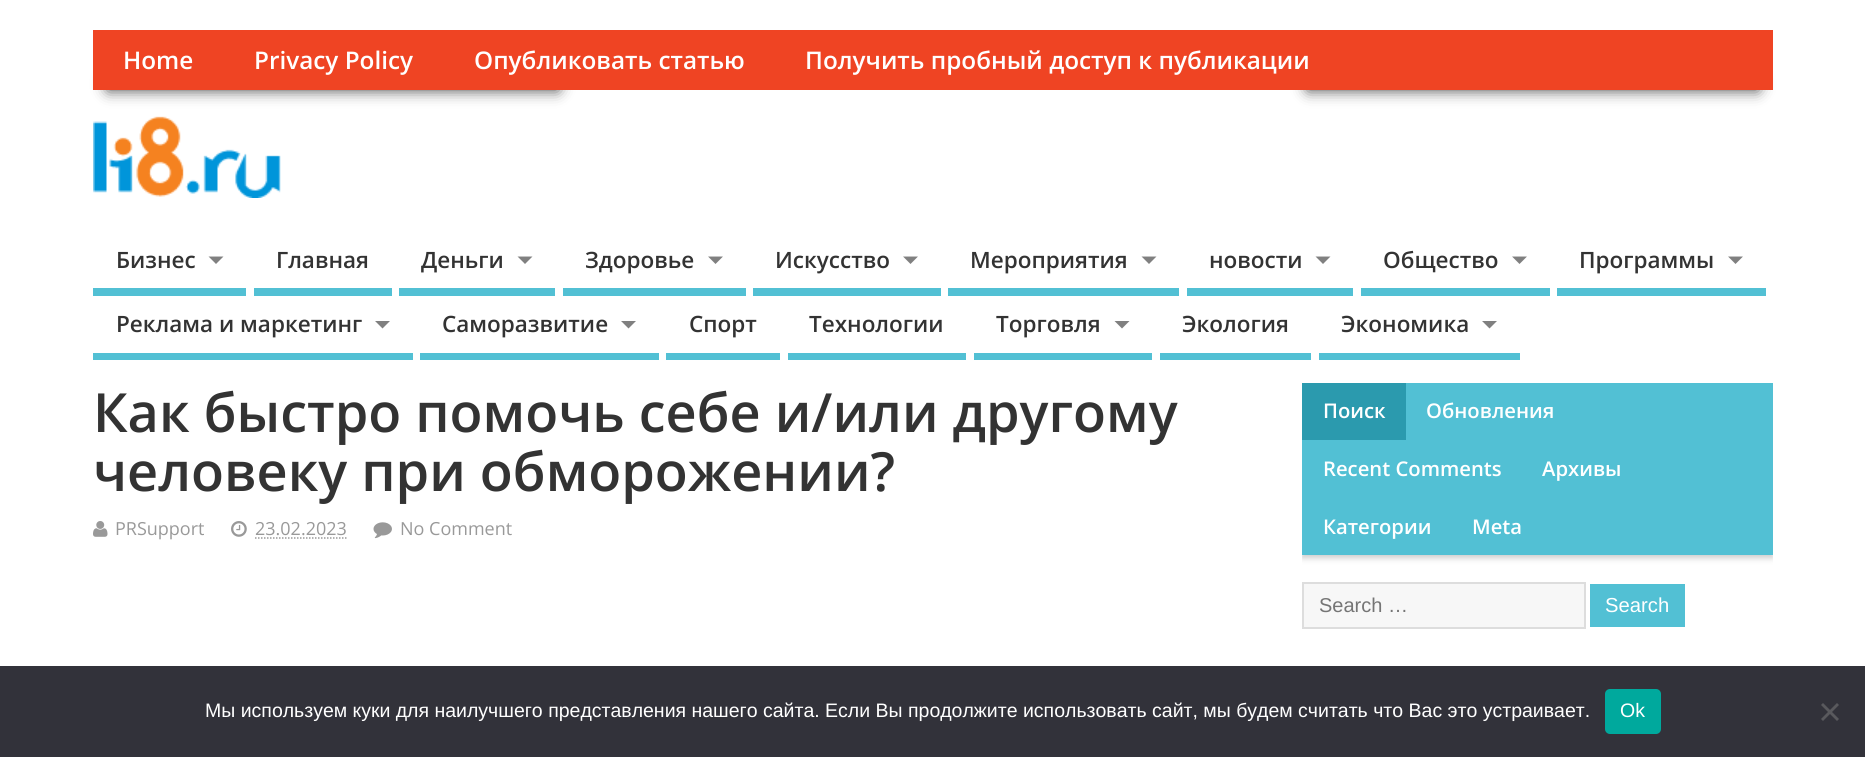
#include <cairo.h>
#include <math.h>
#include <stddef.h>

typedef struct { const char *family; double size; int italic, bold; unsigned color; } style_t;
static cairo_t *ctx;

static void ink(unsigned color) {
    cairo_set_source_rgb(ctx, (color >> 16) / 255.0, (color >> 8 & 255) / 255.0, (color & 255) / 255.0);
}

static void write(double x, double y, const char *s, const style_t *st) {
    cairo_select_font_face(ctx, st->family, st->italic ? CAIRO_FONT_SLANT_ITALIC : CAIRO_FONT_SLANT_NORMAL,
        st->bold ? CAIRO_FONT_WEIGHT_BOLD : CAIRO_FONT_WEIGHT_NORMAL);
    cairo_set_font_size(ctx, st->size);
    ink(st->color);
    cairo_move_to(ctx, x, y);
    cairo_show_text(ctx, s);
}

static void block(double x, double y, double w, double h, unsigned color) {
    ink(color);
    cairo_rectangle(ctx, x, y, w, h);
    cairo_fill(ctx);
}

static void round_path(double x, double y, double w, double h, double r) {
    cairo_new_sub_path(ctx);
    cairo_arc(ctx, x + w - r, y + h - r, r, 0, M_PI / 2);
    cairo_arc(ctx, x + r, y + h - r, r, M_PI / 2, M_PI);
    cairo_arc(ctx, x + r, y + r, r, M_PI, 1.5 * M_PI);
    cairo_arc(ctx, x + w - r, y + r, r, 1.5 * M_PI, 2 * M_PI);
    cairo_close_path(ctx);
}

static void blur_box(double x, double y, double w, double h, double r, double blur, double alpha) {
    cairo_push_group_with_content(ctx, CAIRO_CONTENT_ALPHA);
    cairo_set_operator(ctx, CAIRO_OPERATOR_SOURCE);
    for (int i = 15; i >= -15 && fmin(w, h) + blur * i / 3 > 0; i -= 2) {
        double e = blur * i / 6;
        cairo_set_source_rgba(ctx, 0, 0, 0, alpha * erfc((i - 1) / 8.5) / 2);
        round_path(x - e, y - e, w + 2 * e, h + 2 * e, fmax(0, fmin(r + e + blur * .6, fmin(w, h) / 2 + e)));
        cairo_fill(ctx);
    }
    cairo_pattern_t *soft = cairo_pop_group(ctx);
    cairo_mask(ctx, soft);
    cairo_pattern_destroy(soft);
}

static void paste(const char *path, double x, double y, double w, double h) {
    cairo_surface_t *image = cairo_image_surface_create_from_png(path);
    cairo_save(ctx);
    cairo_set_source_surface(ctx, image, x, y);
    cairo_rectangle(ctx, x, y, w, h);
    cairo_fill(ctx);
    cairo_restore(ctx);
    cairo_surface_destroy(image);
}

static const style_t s1 = {"Open Sans SemiBold", 24.3, 0, 0, 0xffffff};
static const style_t s2 = {"Open Sans SemiBold", 22.5, 0, 0, 0x333333};
static const style_t s3 = {"Open Sans SemiBold", 54, 0, 0, 0x333333};
static const style_t s4 = {"Open Sans", 18, 0, 0, 0x999999};
static const style_t s5 = {"Open Sans SemiBold", 20.25, 0, 0, 0xffffff};
static const style_t s6 = {"Liberation Sans", 20, 0, 0, 0x757575};
static const style_t s7 = {"Liberation Sans", 20.25, 0, 0, 0xffffff};
static const style_t s8 = {"Liberation Sans", 19.5, 0, 0, 0xffffff};

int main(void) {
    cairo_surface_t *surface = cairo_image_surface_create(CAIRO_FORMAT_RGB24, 1865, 757);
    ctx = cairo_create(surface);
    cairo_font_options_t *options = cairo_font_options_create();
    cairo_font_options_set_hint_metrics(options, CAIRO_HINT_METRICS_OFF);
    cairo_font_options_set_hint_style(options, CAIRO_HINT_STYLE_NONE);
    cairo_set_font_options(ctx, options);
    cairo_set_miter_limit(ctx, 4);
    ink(0xffffff);
    cairo_paint(ctx);
    ink(0x000000);
    blur_box(108, 78, 450, 12, 0, 7.5, 0.75);
    blur_box(1308, 78, 450, 12, 0, 7.5, 0.75);
    block(93, 30, 1680, 60, 0xef4423);
    write(123, 69, "Home", &s1);
    write(254, 69, "Privacy Policy", &s1);
    write(474, 69, "Опубликовать статью", &s1);
    write(805, 69, "Получить пробный доступ к публикации", &s1);
    paste("pic1.png", 93, 116, 188, 82);
    block(93, 288, 153, 8, 0x52c0d4);
    write(116, 268, "Бизнес", &s2);
    ink(0x808080);
    cairo_new_path(ctx);
    cairo_move_to(ctx, 208.5, 256.5);
    cairo_line_to(ctx, 223.5, 256.5);
    cairo_line_to(ctx, 216, 264);
    cairo_close_path(ctx);
    cairo_fill(ctx);
    block(254, 288, 138, 8, 0x52c0d4);
    write(276, 268, "Главная", &s2);
    block(399, 288, 156, 8, 0x52c0d4);
    write(421, 268, "Деньги", &s2);
    ink(0x808080);
    cairo_new_path(ctx);
    cairo_move_to(ctx, 517.5, 256.5);
    cairo_line_to(ctx, 532.5, 256.5);
    cairo_line_to(ctx, 525, 264);
    cairo_close_path(ctx);
    cairo_fill(ctx);
    block(563, 288, 183, 8, 0x52c0d4);
    write(585, 268, "Здоровье", &s2);
    ink(0x808080);
    cairo_new_path(ctx);
    cairo_move_to(ctx, 708, 256.5);
    cairo_line_to(ctx, 723, 256.5);
    cairo_line_to(ctx, 715.5, 264);
    cairo_close_path(ctx);
    cairo_fill(ctx);
    block(753, 288, 188, 8, 0x52c0d4);
    write(775, 268, "Искусство", &s2);
    ink(0x808080);
    cairo_new_path(ctx);
    cairo_move_to(ctx, 903, 256.5);
    cairo_line_to(ctx, 918, 256.5);
    cairo_line_to(ctx, 910.5, 264);
    cairo_close_path(ctx);
    cairo_fill(ctx);
    block(948, 288, 231, 8, 0x52c0d4);
    write(970, 268, "Мероприятия", &s2);
    ink(0x808080);
    cairo_new_path(ctx);
    cairo_move_to(ctx, 1141.5, 256.5);
    cairo_line_to(ctx, 1156.5, 256.5);
    cairo_line_to(ctx, 1149, 264);
    cairo_close_path(ctx);
    cairo_fill(ctx);
    block(1187, 288, 166, 8, 0x52c0d4);
    write(1209, 268, "новости", &s2);
    ink(0x808080);
    cairo_new_path(ctx);
    cairo_move_to(ctx, 1315.5, 256.5);
    cairo_line_to(ctx, 1330.5, 256.5);
    cairo_line_to(ctx, 1323, 264);
    cairo_close_path(ctx);
    cairo_fill(ctx);
    block(1361, 288, 189, 8, 0x52c0d4);
    write(1383, 268, "Общество", &s2);
    ink(0x808080);
    cairo_new_path(ctx);
    cairo_move_to(ctx, 1512, 256.5);
    cairo_line_to(ctx, 1527, 256.5);
    cairo_line_to(ctx, 1519.5, 264);
    cairo_close_path(ctx);
    cairo_fill(ctx);
    block(1557, 288, 209, 8, 0x52c0d4);
    write(1579, 268, "Программы", &s2);
    ink(0x808080);
    cairo_new_path(ctx);
    cairo_move_to(ctx, 1728, 256.5);
    cairo_line_to(ctx, 1743, 256.5);
    cairo_line_to(ctx, 1735.5, 264);
    cairo_close_path(ctx);
    cairo_fill(ctx);
    block(93, 353, 320, 7, 0x52c0d4);
    write(116, 332, "Реклама и маркетинг", &s2);
    ink(0x808080);
    cairo_new_path(ctx);
    cairo_move_to(ctx, 375, 321);
    cairo_line_to(ctx, 390, 321);
    cairo_line_to(ctx, 382.5, 328.5);
    cairo_close_path(ctx);
    cairo_fill(ctx);
    block(420, 353, 239, 7, 0x52c0d4);
    write(442, 332, "Саморазвитие", &s2);
    ink(0x808080);
    cairo_new_path(ctx);
    cairo_move_to(ctx, 621, 321);
    cairo_line_to(ctx, 636, 321);
    cairo_line_to(ctx, 628.5, 328.5);
    cairo_close_path(ctx);
    cairo_fill(ctx);
    block(666, 353, 114, 7, 0x52c0d4);
    write(689, 332, "Спорт", &s2);
    block(788, 353, 178, 7, 0x52c0d4);
    write(809, 332, "Технологии", &s2);
    block(974, 353, 178, 7, 0x52c0d4);
    write(996, 332, "Торговля", &s2);
    ink(0x808080);
    cairo_new_path(ctx);
    cairo_move_to(ctx, 1114.5, 321);
    cairo_line_to(ctx, 1129.5, 321);
    cairo_line_to(ctx, 1122, 328.5);
    cairo_close_path(ctx);
    cairo_fill(ctx);
    block(1160, 353, 151, 7, 0x52c0d4);
    write(1182, 332, "Экология", &s2);
    block(1319, 353, 201, 7, 0x52c0d4);
    write(1341, 332, "Экономика", &s2);
    ink(0x808080);
    cairo_new_path(ctx);
    cairo_move_to(ctx, 1482, 321);
    cairo_line_to(ctx, 1497, 321);
    cairo_line_to(ctx, 1489.5, 328.5);
    cairo_close_path(ctx);
    cairo_fill(ctx);
    write(93, 432, "Как быстро помочь себе и/или другому", &s3);
    write(93, 491, "человеку при обморожении?", &s3);
    paste("pic2.png", 93, 521, 15, 16);
    write(115, 535, "PRSupport", &s4);
    paste("pic3.png", 231, 521, 16, 16);
    write(255, 535, "23.02.2023", &s4);
    cairo_new_path(ctx);
    cairo_move_to(ctx, 255, 538);
    cairo_line_to(ctx, 347, 538);
    cairo_set_line_width(ctx, 1.5);
    cairo_set_dash(ctx, (double[]){1.5, 1.5}, 2, 0);
    cairo_stroke(ctx);
    paste("pic4.png", 373, 522, 19, 17);
    write(400, 535, "No Comment", &s4);
    cairo_save(ctx);
    cairo_rectangle(ctx, 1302, 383, 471, 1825);
    cairo_clip(ctx);
    ink(0xcccccc);
    blur_box(1302, 386, 471, 172, 0, 3, 1);
    cairo_restore(ctx);
    block(1302, 383, 471, 172, 0x52c0d4);
    block(1302, 383, 104, 57, 0x2b9aae);
    write(1323, 418, "Поиск", &s5);
    write(1426, 418, "Обновления", &s5);
    write(1323, 476, "Recent Comments", &s5);
    write(1542, 476, "Архивы", &s5);
    write(1323, 534, "Категории", &s5);
    write(1472, 534, "Meta", &s5);
    ink(0xf7f7f7);
    cairo_rectangle(ctx, 1303, 583, 282, 45);
    cairo_fill_preserve(ctx);
    ink(0xdddddd);
    cairo_set_line_width(ctx, 2);
    cairo_set_dash(ctx, NULL, 0, 0);
    cairo_stroke(ctx);
    write(1319, 612, "Search …", &s6);
    block(1590, 584, 95, 43, 0x52c0d4);
    write(1605, 612, "Search", &s7);
    block(0, 666, 1865, 91, 0x32323a);
    write(205, 717, "Мы используем куки для наилучшего представления нашего сайта. Если Вы продолжите использовать сайт, мы будем считать что Вас это устраивает.", &s8);
    ink(0x00a99d);
    round_path(1605, 689, 56, 45, 5);
    cairo_fill(ctx);
    write(1620, 717, "Ok", &s8);
    ink(0x59595d);
    cairo_new_path(ctx);
    cairo_move_to(ctx, 1837, 703);
    cairo_line_to(ctx, 1839, 705);
    cairo_line_to(ctx, 1823, 721);
    cairo_line_to(ctx, 1821, 719);
    cairo_close_path(ctx);
    cairo_fill(ctx);
    cairo_new_path(ctx);
    cairo_move_to(ctx, 1821, 705);
    cairo_line_to(ctx, 1823, 703);
    cairo_line_to(ctx, 1839, 719);
    cairo_line_to(ctx, 1837, 721);
    cairo_close_path(ctx);
    cairo_fill(ctx);
    cairo_surface_write_to_png(surface, "screenshot.png");
    cairo_font_options_destroy(options);
    cairo_destroy(ctx);
    cairo_surface_destroy(surface);
    return 0;
}
